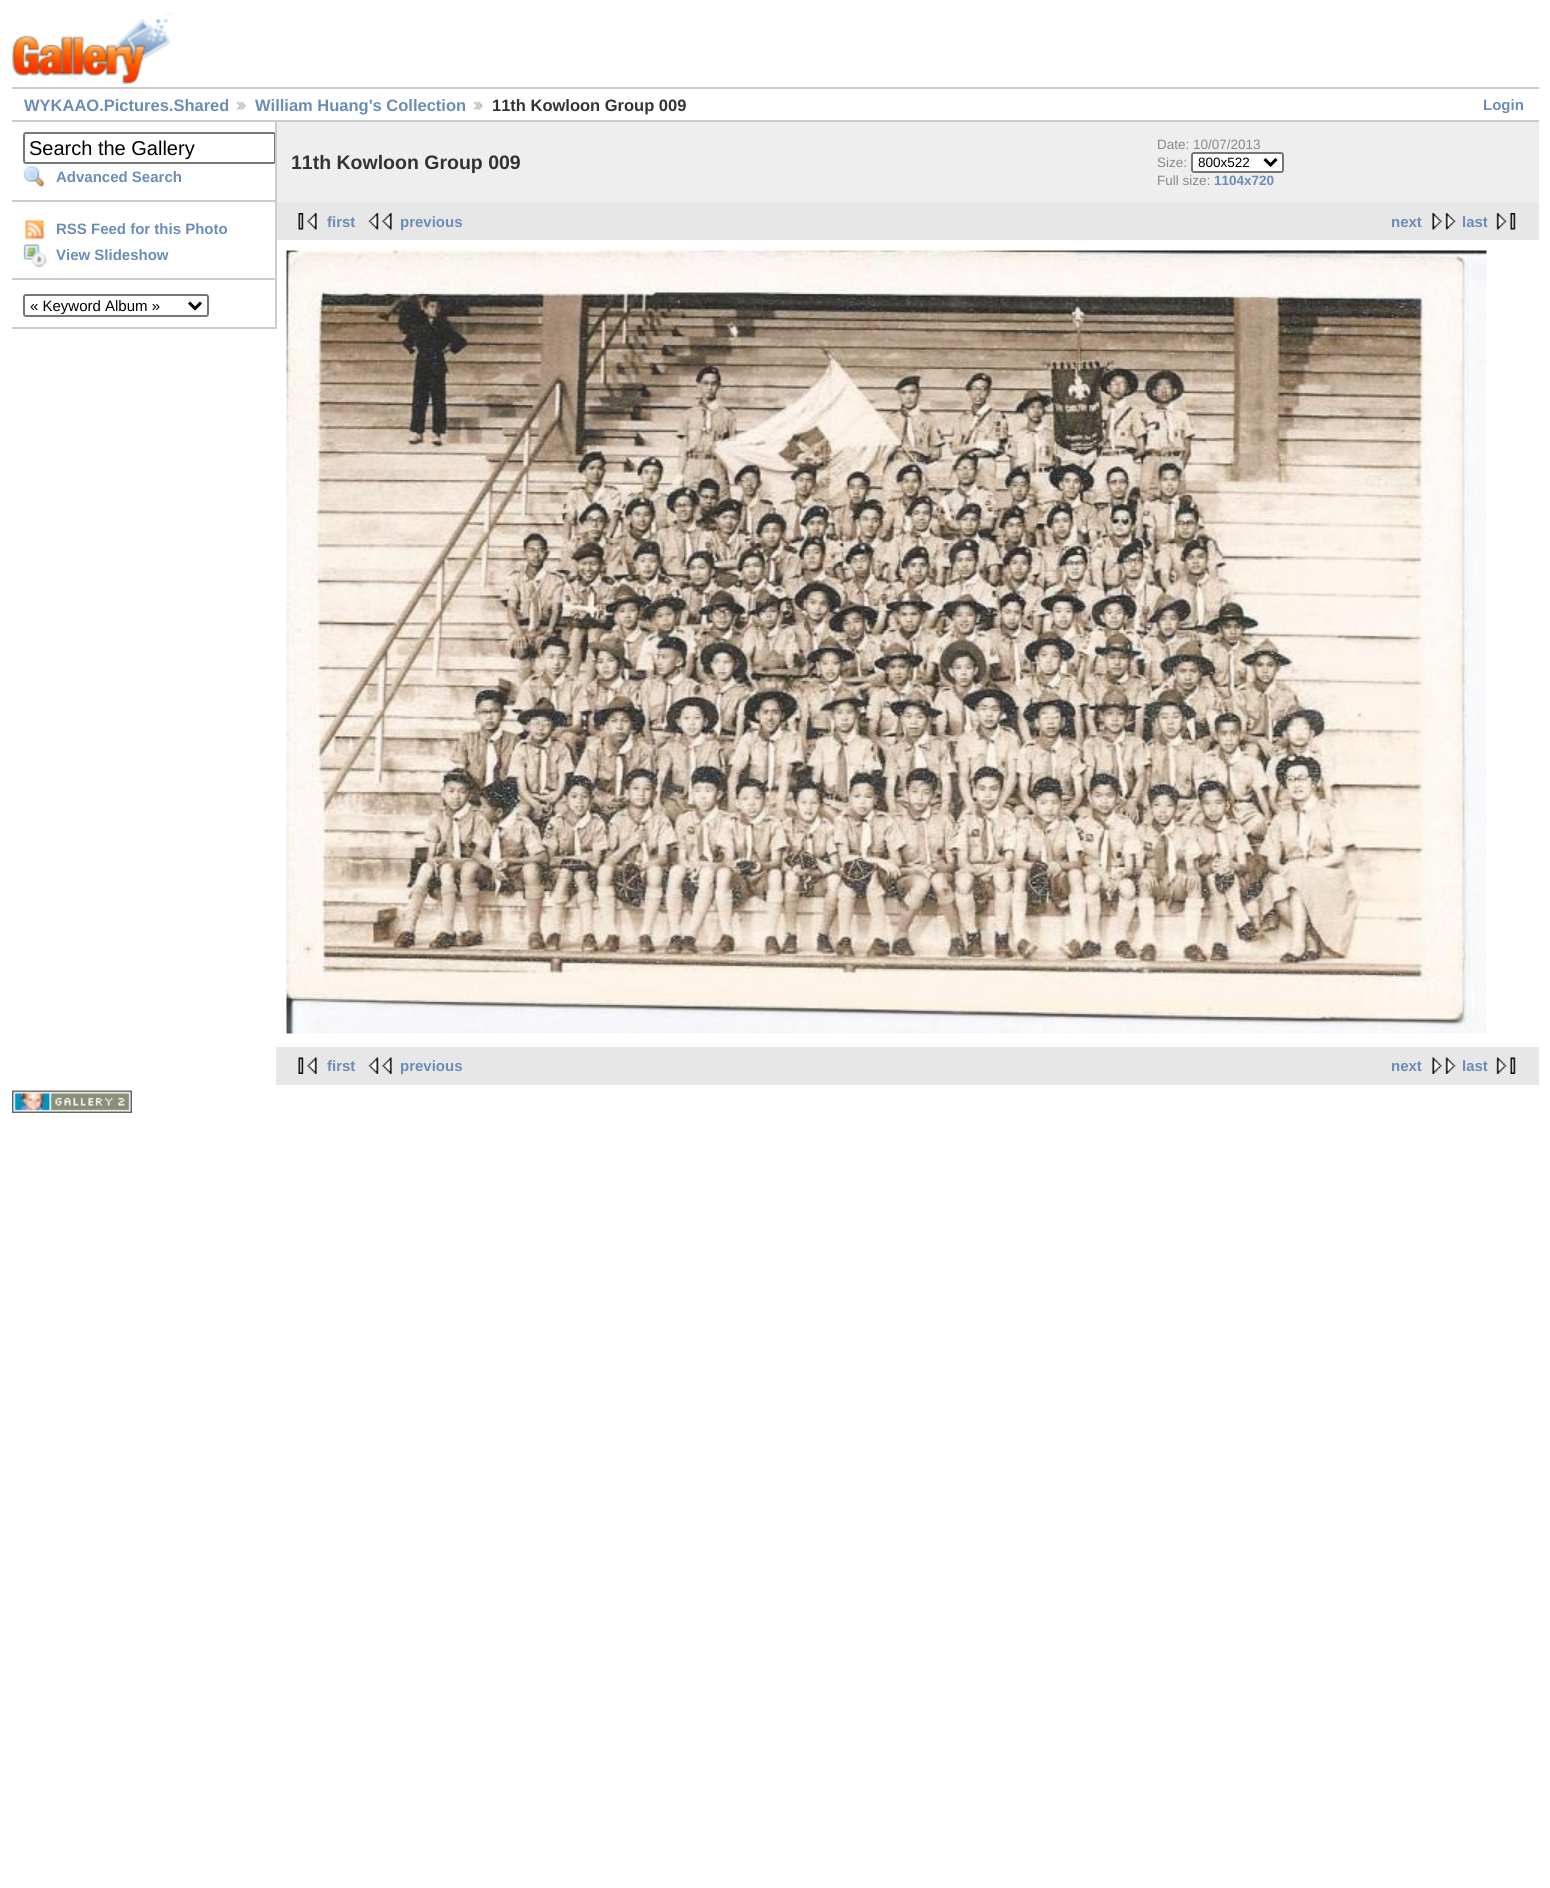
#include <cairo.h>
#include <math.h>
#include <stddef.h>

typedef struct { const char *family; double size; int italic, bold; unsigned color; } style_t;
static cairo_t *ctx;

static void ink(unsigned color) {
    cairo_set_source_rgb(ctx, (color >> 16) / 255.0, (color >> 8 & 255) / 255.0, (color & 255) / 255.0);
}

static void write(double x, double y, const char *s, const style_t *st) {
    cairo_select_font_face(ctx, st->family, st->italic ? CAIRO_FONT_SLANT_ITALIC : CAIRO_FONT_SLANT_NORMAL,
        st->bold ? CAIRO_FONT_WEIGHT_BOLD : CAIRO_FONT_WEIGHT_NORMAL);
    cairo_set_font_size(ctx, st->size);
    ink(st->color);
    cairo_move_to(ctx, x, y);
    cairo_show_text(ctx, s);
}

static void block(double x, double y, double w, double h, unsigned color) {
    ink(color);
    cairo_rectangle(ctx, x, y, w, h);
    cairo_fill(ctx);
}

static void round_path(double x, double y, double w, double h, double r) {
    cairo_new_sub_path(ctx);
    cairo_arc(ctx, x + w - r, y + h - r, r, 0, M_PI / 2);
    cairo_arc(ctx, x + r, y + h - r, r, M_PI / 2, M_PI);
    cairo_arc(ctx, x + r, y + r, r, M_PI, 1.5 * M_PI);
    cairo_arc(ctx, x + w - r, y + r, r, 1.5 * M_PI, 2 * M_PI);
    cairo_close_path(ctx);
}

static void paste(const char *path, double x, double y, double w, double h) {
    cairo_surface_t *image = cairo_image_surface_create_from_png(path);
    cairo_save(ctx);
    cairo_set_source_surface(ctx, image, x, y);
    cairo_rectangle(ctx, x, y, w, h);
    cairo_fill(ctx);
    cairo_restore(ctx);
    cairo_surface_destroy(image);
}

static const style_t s1 = {"Liberation Sans", 16.5, 0, 1, 0x6b8cb7};
static const style_t s2 = {"Liberation Sans", 16.5, 0, 1, 0x333333};
static const style_t s3 = {"Liberation Sans", 15, 0, 1, 0x6b8cb7};
static const style_t s4 = {"Liberation Sans", 20, 0, 0, 0x000000};
static const style_t s5 = {"Liberation Sans", 15, 0, 0, 0x000000};
static const style_t s6 = {"Liberation Sans", 19.5, 0, 1, 0x333333};
static const style_t s7 = {"Liberation Sans", 13.5, 0, 0, 0x888888};
static const style_t s8 = {"Liberation Sans", 13.5, 0, 0, 0x000000};
static const style_t s9 = {"Liberation Sans", 13.5, 0, 1, 0x6b8cb7};

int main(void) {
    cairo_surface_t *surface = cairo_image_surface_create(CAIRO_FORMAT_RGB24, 1550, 1888);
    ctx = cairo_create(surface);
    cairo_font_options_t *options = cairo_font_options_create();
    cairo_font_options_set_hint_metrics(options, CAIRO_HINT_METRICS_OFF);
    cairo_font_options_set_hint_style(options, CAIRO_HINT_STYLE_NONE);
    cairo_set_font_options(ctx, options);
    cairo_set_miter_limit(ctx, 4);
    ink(0xffffff);
    cairo_paint(ctx);
    paste("pic1.png", 12, 12, 161, 72);
    block(12, 87, 1527, 2, 0xcccccc);
    block(12, 120, 1527, 2, 0xcccccc);
    write(24, 111, "WYKAAO.Pictures.Shared", &s1);
    paste("pic2.png", 236, 101, 11, 9);
    write(255, 111, "William Huang's Collection", &s1);
    paste("pic3.png", 473, 101, 11, 9);
    write(492, 111, "11th Kowloon Group 009", &s2);
    write(1483, 110, "Login", &s3);
    block(275, 122, 2, 207, 0xcccccc);
    block(12, 200, 263, 2, 0xcccccc);
    cairo_save(ctx);
    cairo_rectangle(ctx, 12, 122, 263, 207);
    cairo_clip(ctx);
    round_path(24, 133, 251, 30, 2);
    ink(0x767676);
    cairo_stroke(ctx);
    cairo_restore(ctx);
    write(29, 155, "Search the Gallery", &s4);
    paste("pic4.png", 23, 166, 21, 22);
    write(56, 182, "Advanced Search", &s3);
    block(12, 278, 263, 2, 0xcccccc);
    paste("pic5.png", 25, 220, 19, 19);
    write(56, 234, "RSS Feed for this Photo", &s3);
    paste("pic6.png", 23, 244, 24, 23);
    write(56, 260, "View Slideshow", &s3);
    block(12, 327, 263, 2, 0xcccccc);
    round_path(24, 295, 184, 21, 2);
    ink(0x767676);
    cairo_stroke(ctx);
    cairo_new_path(ctx);
    cairo_move_to(ctx, 189, 302.5);
    cairo_line_to(ctx, 195, 308.5);
    cairo_line_to(ctx, 201, 302.5);
    ink(0x000000);
    cairo_set_line_width(ctx, 3);
    cairo_stroke(ctx);
    write(30, 311, "« Keyword Album »", &s5);
    block(277, 122, 1262, 81, 0xeeeeee);
    write(291, 169, "11th Kowloon Group 009", &s6);
    write(1157, 149, "Date: 10/07/2013", &s7);
    write(1157, 167, "Size:", &s7);
    ink(0xffffff);
    round_path(1192, 153, 91, 19, 2);
    cairo_fill_preserve(ctx);
    ink(0x767676);
    cairo_set_line_width(ctx, 2);
    cairo_stroke(ctx);
    cairo_new_path(ctx);
    cairo_move_to(ctx, 1264.5, 159);
    cairo_line_to(ctx, 1270.5, 165);
    cairo_line_to(ctx, 1276.5, 159);
    ink(0x000000);
    cairo_set_line_width(ctx, 3);
    cairo_stroke(ctx);
    write(1198, 167, "800x522", &s8);
    write(1157, 185, "Full size:", &s7);
    write(1214, 185, "1104x720", &s9);
    block(277, 203, 1262, 37, 0xe7e7e7);
    paste("pic7.png", 298, 213, 19, 17);
    write(327, 227, "first", &s3);
    paste("pic8.png", 368, 213, 24, 17);
    write(400, 227, "previous", &s3);
    write(1391, 227, "next", &s3);
    paste("pic9.png", 1432, 213, 24, 17);
    write(1462, 227, "last", &s3);
    paste("pic10.png", 1496, 213, 20, 17);
    paste("pic11.png", 286, 250, 1201, 784);
    block(276, 1047, 1263, 38, 0xe7e7e7);
    paste("pic12.png", 298, 1057, 19, 17);
    write(327, 1071, "first", &s3);
    paste("pic13.png", 368, 1057, 24, 17);
    write(400, 1071, "previous", &s3);
    write(1391, 1071, "next", &s3);
    paste("pic14.png", 1432, 1057, 24, 17);
    write(1462, 1071, "last", &s3);
    paste("pic15.png", 1496, 1057, 20, 17);
    paste("pic16.png", 12, 1090, 120, 23);
    cairo_surface_write_to_png(surface, "screenshot.png");
    cairo_font_options_destroy(options);
    cairo_destroy(ctx);
    cairo_surface_destroy(surface);
    return 0;
}
